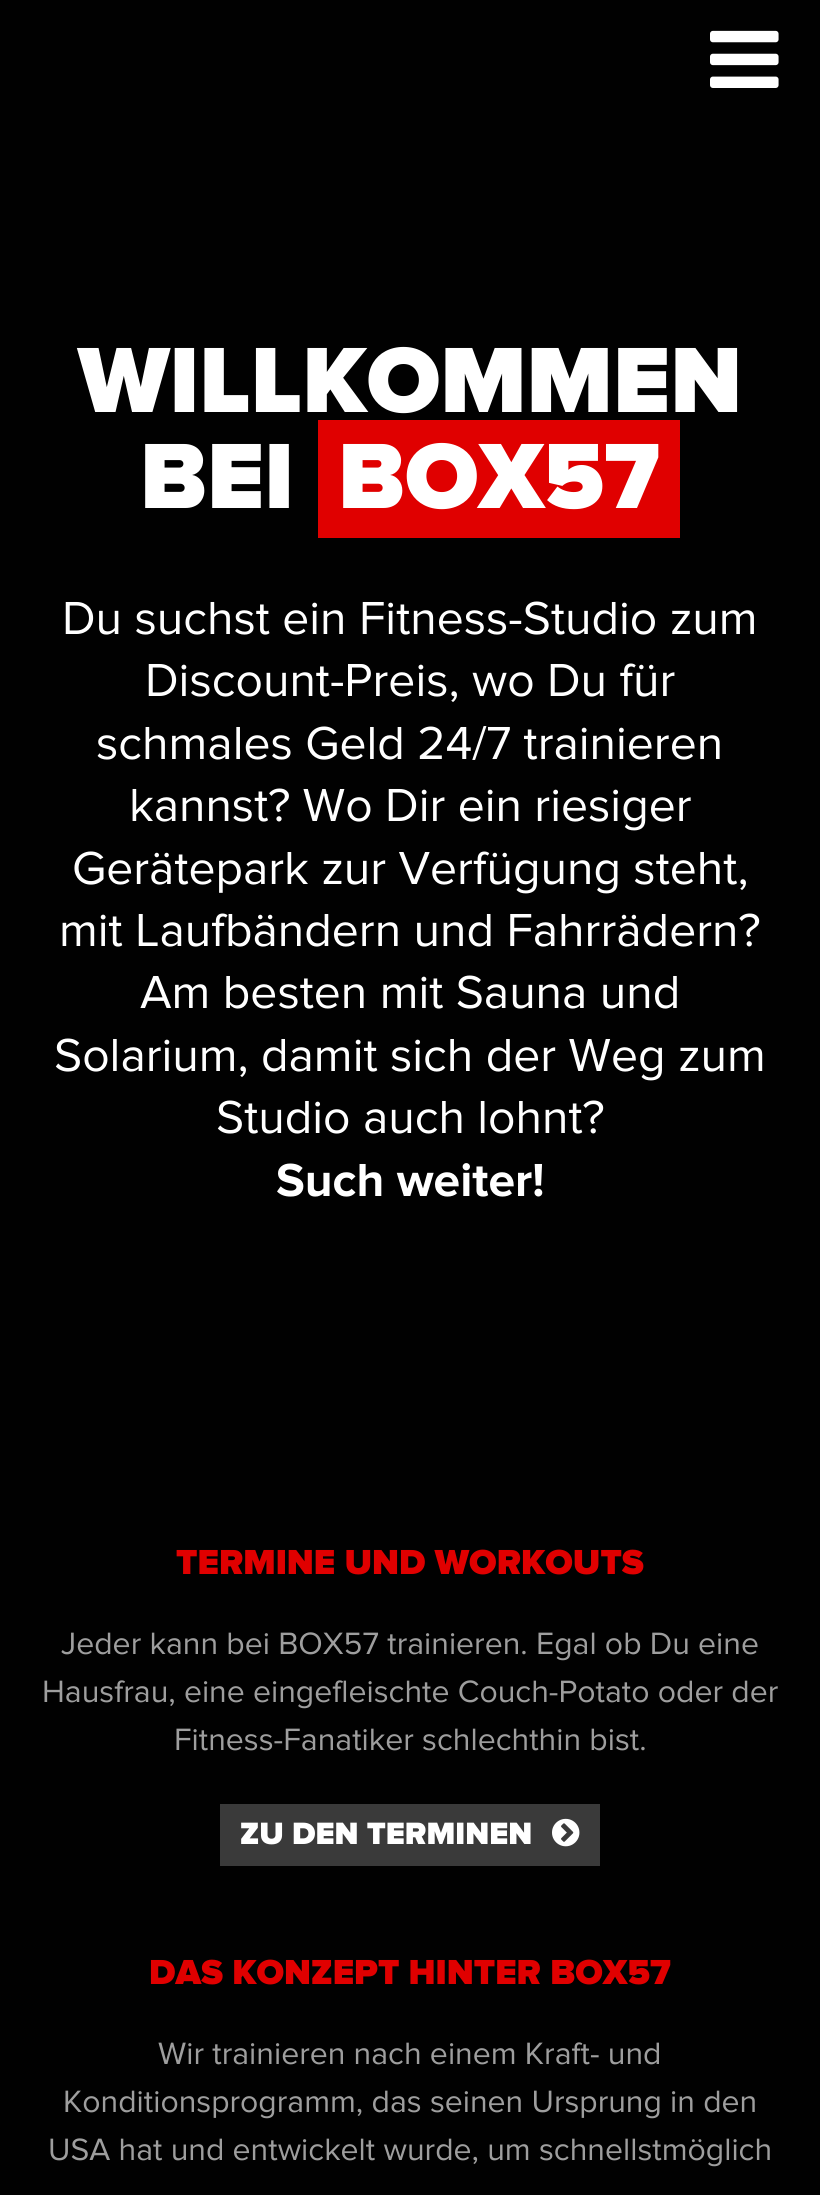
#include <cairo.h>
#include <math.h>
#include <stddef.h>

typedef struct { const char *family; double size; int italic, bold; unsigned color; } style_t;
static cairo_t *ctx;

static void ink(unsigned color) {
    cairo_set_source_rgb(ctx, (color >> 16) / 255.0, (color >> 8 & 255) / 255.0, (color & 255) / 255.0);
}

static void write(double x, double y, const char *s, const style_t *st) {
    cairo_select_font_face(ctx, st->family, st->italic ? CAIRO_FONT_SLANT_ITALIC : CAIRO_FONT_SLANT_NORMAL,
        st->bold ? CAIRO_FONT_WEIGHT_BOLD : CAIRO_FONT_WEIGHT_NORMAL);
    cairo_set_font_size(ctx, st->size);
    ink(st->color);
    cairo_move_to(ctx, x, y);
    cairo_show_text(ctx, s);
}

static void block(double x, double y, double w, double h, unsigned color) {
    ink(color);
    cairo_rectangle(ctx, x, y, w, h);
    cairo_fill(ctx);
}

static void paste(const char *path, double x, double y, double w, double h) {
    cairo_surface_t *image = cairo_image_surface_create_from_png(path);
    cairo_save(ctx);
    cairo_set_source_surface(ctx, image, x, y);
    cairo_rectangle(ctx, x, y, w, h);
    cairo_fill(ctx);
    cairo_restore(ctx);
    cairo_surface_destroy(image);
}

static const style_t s1 = {"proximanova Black", 96, 0, 0, 0xffffff};
static const style_t s2 = {"proximanova", 48, 0, 0, 0xffffff};
static const style_t s3 = {"proximanova", 48, 0, 1, 0xffffff};
static const style_t s4 = {"proximanova Black", 36, 0, 0, 0xe00000};
static const style_t s5 = {"proximanova", 32, 0, 0, 0x9e9e9e};
static const style_t s6 = {"proximanova Black", 32, 0, 0, 0xffffff};

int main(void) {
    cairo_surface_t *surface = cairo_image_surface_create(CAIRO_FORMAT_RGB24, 820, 2195);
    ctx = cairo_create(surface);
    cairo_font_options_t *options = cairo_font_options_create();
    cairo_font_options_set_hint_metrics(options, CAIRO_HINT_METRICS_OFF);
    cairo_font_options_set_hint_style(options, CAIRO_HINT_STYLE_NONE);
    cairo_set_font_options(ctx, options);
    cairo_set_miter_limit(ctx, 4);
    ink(0x010101);
    cairo_paint(ctx);
    paste("pic1.png", 710, 30, 69, 58);
    write(78, 412, "WILLKOMMEN", &s1);
    write(140, 508, "BEI", &s1);
    block(318, 420, 362, 118, 0xe00000);
    write(338, 508, "BOX57", &s1);
    write(62, 634, "Du suchst ein Fitness-Studio zum", &s2);
    write(145, 696, "Discount-Preis, wo Du für", &s2);
    write(96, 759, "schmales Geld 24/7 trainieren", &s2);
    write(129, 821, "kannst? Wo Dir ein riesiger", &s2);
    write(72, 884, "Gerätepark zur Verfügung steht,", &s2);
    write(59, 946, "mit Laufbändern und Fahrrädern?", &s2);
    write(140, 1008, "Am besten mit Sauna und", &s2);
    write(54, 1071, "Solarium, damit sich der Weg zum", &s2);
    write(216, 1133, "Studio auch lohnt?", &s2);
    write(276, 1196, "Such weiter!", &s3);
    write(176, 1574, "TERMINE UND WORKOUTS", &s4);
    write(61, 1654, "Jeder kann bei BOX57 trainieren. Egal ob Du eine", &s5);
    write(42, 1702, "Hausfrau, eine eingefleischte Couch-Potato oder der", &s5);
    write(174, 1750, "Fitness-Fanatiker schlechthin bist.", &s5);
    block(220, 1804, 380, 62, 0x3a3a3a);
    write(240, 1844, "ZU DEN TERMINEN", &s6);
    paste("pic2.png", 552, 1818, 28, 29);
    write(149, 1984, "DAS KONZEPT HINTER BOX57", &s4);
    write(158, 2064, "Wir trainieren nach einem Kraft- und", &s5);
    write(63, 2112, "Konditionsprogramm, das seinen Ursprung in den", &s5);
    write(48, 2160, "USA hat und entwickelt wurde, um schnellstmöglich", &s5);
    cairo_surface_write_to_png(surface, "screenshot.png");
    cairo_font_options_destroy(options);
    cairo_destroy(ctx);
    cairo_surface_destroy(surface);
    return 0;
}
